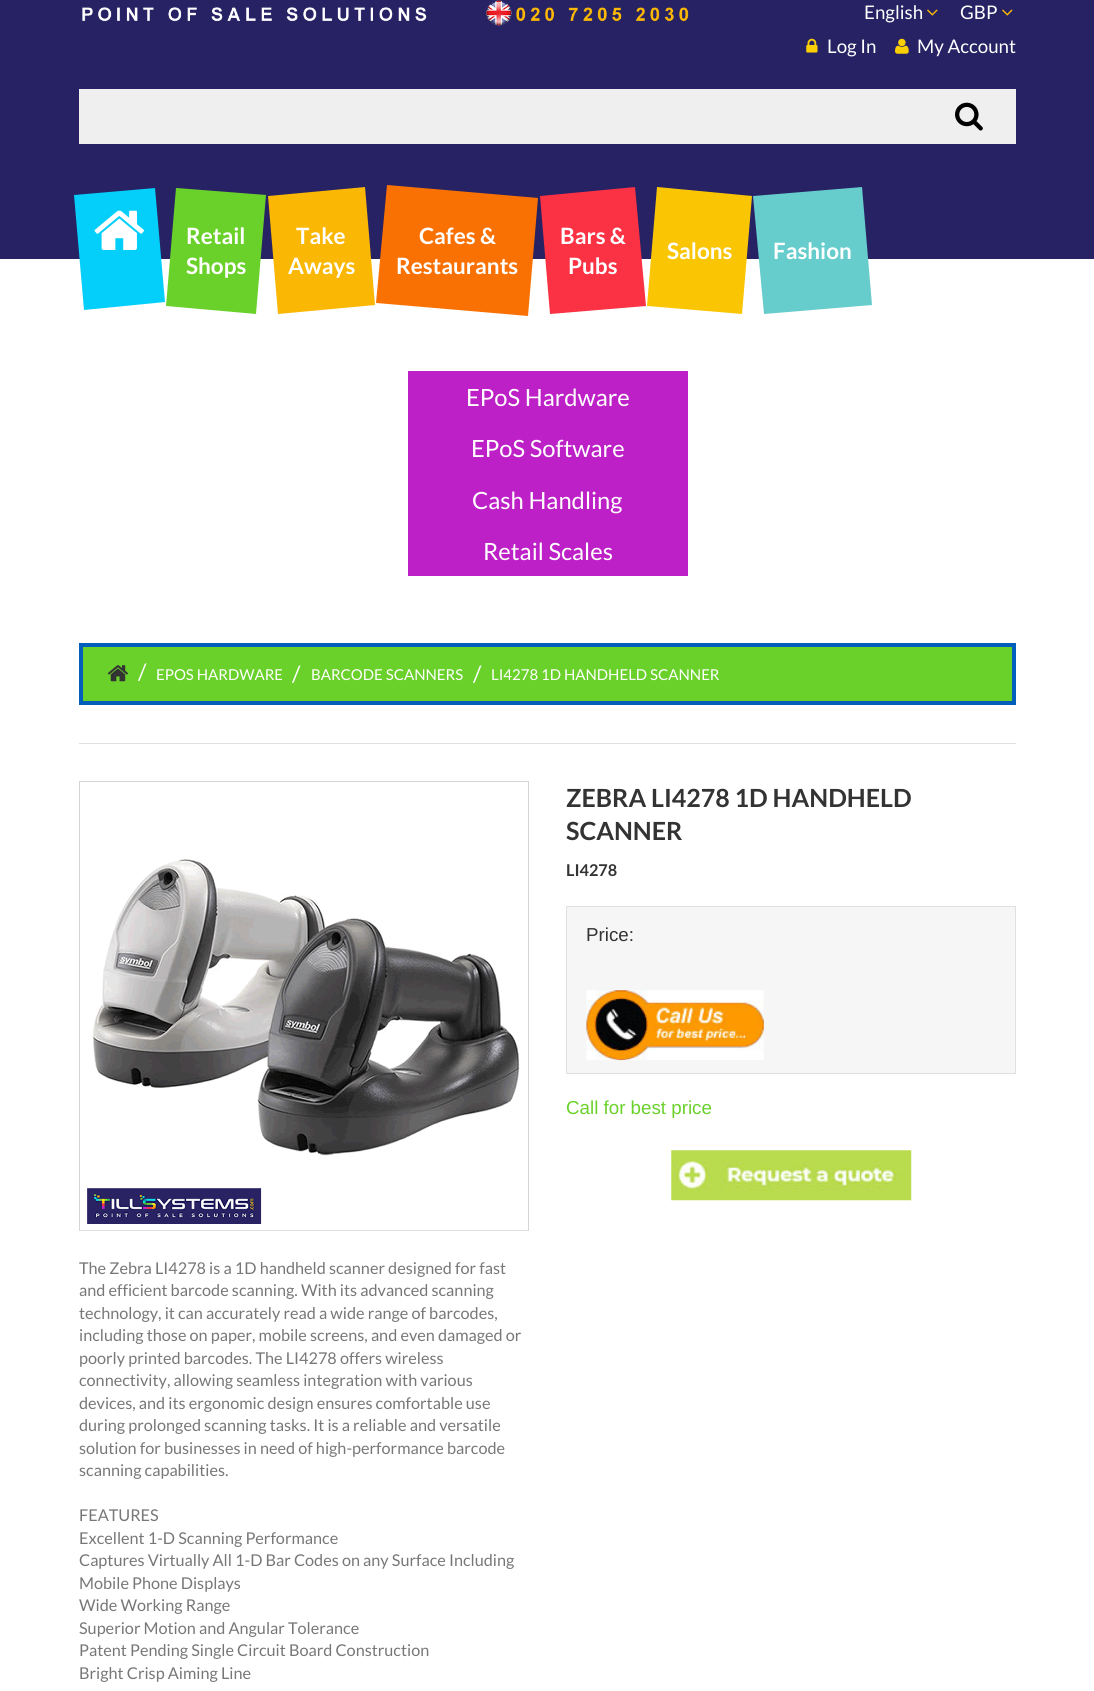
#include <cairo.h>
#include <math.h>
#include <stddef.h>

typedef struct { const char *family; double size; int italic, bold; unsigned color; } style_t;
static cairo_t *ctx;

static void ink(unsigned color) {
    cairo_set_source_rgb(ctx, (color >> 16) / 255.0, (color >> 8 & 255) / 255.0, (color & 255) / 255.0);
}

static void write(double x, double y, const char *s, const style_t *st) {
    cairo_select_font_face(ctx, st->family, st->italic ? CAIRO_FONT_SLANT_ITALIC : CAIRO_FONT_SLANT_NORMAL,
        st->bold ? CAIRO_FONT_WEIGHT_BOLD : CAIRO_FONT_WEIGHT_NORMAL);
    cairo_set_font_size(ctx, st->size);
    ink(st->color);
    cairo_move_to(ctx, x, y);
    cairo_show_text(ctx, s);
}

static void block(double x, double y, double w, double h, unsigned color) {
    ink(color);
    cairo_rectangle(ctx, x, y, w, h);
    cairo_fill(ctx);
}

static void paste(const char *path, double x, double y, double w, double h) {
    cairo_surface_t *image = cairo_image_surface_create_from_png(path);
    cairo_save(ctx);
    cairo_set_source_surface(ctx, image, x, y);
    cairo_rectangle(ctx, x, y, w, h);
    cairo_fill(ctx);
    cairo_restore(ctx);
    cairo_surface_destroy(image);
}

static const style_t s1 = {"Lato", 18.75, 0, 0, 0xffffff};
static const style_t s2 = {"Lato", 22.5, 0, 1, 0xffffff};
static const style_t s3 = {"Lato", 23.75, 0, 0, 0xffffff};
static const style_t s4 = {"Lato", 22.5, 0, 0, 0xffffff};
static const style_t s5 = {"Lato", 15, 0, 0, 0xffffff};
static const style_t s6 = {"Lato", 25, 0, 1, 0x333333};
static const style_t s7 = {"Lato", 16.25, 0, 1, 0x333333};
static const style_t s8 = {"Liberation Sans", 18.75, 0, 0, 0x333333};
static const style_t s9 = {"Liberation Sans", 18.75, 0, 0, 0x6ad12b};
static const style_t s10 = {"Lato", 16.25, 0, 0, 0x777777};

int main(void) {
    cairo_surface_t *surface = cairo_image_surface_create(CAIRO_FORMAT_RGB24, 1094, 1691);
    ctx = cairo_create(surface);
    cairo_font_options_t *options = cairo_font_options_create();
    cairo_font_options_set_hint_metrics(options, CAIRO_HINT_METRICS_OFF);
    cairo_font_options_set_hint_style(options, CAIRO_HINT_STYLE_NONE);
    cairo_set_font_options(ctx, options);
    cairo_set_miter_limit(ctx, 4);
    ink(0xffffff);
    cairo_paint(ctx);
    block(0, 0, 1094, 259, 0x272264);
    paste("pic1.png", 82, 0, 607, 26);
    write(864, 19, "English", &s1);
    paste("pic2.png", 927, 9, 11, 7);
    write(960, 19, "GBP", &s1);
    paste("pic2.png", 1002, 9, 11, 7);
    paste("pic3.png", 806, 38, 12, 15);
    write(827, 53, "Log In", &s1);
    paste("pic4.png", 895, 38, 14, 16);
    write(917, 53, "My Account", &s1);
    block(79, 89, 937, 55, 0xefefef);
    paste("pic5.png", 955, 102, 28, 29);
    ink(0x04cffa);
    cairo_new_path(ctx);
    cairo_move_to(ctx, 74, 195);
    cairo_line_to(ctx, 155, 188);
    cairo_line_to(ctx, 165, 302);
    cairo_line_to(ctx, 84, 310);
    cairo_close_path(ctx);
    cairo_fill(ctx);
    paste("pic6.png", 94, 210, 50, 40);
    ink(0x6ad12b);
    cairo_new_path(ctx);
    cairo_move_to(ctx, 176, 188);
    cairo_line_to(ctx, 266, 195);
    cairo_line_to(ctx, 256, 314);
    cairo_line_to(ctx, 166, 306);
    cairo_close_path(ctx);
    cairo_fill(ctx);
    write(186, 244, "Retail", &s2);
    write(186, 274, "Shops", &s2);
    ink(0xfab703);
    cairo_new_path(ctx);
    cairo_move_to(ctx, 268, 196);
    cairo_line_to(ctx, 365, 187);
    cairo_line_to(ctx, 375, 305);
    cairo_line_to(ctx, 278, 314);
    cairo_close_path(ctx);
    cairo_fill(ctx);
    write(296, 244, "Take", &s2);
    write(288, 274, "Aways", &s2);
    ink(0xfa7103);
    cairo_new_path(ctx);
    cairo_move_to(ctx, 387, 185);
    cairo_line_to(ctx, 538, 198);
    cairo_line_to(ctx, 528, 316);
    cairo_line_to(ctx, 376, 303);
    cairo_close_path(ctx);
    cairo_fill(ctx);
    write(419, 244, "Cafes &", &s2);
    write(396, 274, "Restaurants", &s2);
    ink(0xfb3144);
    cairo_new_path(ctx);
    cairo_move_to(ctx, 540, 196);
    cairo_line_to(ctx, 635, 187);
    cairo_line_to(ctx, 646, 306);
    cairo_line_to(ctx, 550, 314);
    cairo_close_path(ctx);
    cairo_fill(ctx);
    write(560, 244, "Bars &", &s2);
    write(568, 274, "Pubs", &s2);
    ink(0xfac503);
    cairo_new_path(ctx);
    cairo_move_to(ctx, 657, 187);
    cairo_line_to(ctx, 752, 196);
    cairo_line_to(ctx, 742, 314);
    cairo_line_to(ctx, 647, 306);
    cairo_close_path(ctx);
    cairo_fill(ctx);
    write(667, 259, "Salons", &s2);
    ink(0x66cccc);
    cairo_new_path(ctx);
    cairo_move_to(ctx, 753, 196);
    cairo_line_to(ctx, 862, 187);
    cairo_line_to(ctx, 872, 305);
    cairo_line_to(ctx, 764, 314);
    cairo_close_path(ctx);
    cairo_fill(ctx);
    write(773, 259, "Fashion", &s2);
    block(408, 371, 280, 205, 0xbd20c7);
    write(466, 406, "EPoS Hardware", &s3);
    write(471, 457, "EPoS Software", &s3);
    write(472, 509, "Cash Handling", &s3);
    write(483, 560, "Retail Scales", &s3);
    ink(0x6ad12b);
    cairo_rectangle(ctx, 81, 645, 933, 58);
    cairo_fill_preserve(ctx);
    ink(0x015eba);
    cairo_set_line_width(ctx, 4);
    cairo_stroke(ctx);
    paste("pic7.png", 107, 665, 21, 17);
    write(138, 680, "/", &s4);
    write(156, 680, "EPOS HARDWARE", &s5);
    write(292, 682, "/", &s4);
    write(311, 680, "BARCODE SCANNERS", &s5);
    write(473, 682, "/", &s4);
    write(491, 680, "LI4278 1D HANDHELD SCANNER", &s5);
    block(79, 743, 937, 1, 0xe0e0e0);
    write(566, 807, "ZEBRA LI4278 1D HANDHELD", &s6);
    write(566, 840, "SCANNER", &s6);
    write(566, 876, "LI4278", &s7);
    ink(0xf6f6f6);
    cairo_rectangle(ctx, 566.5, 906.5, 449, 167);
    cairo_fill_preserve(ctx);
    ink(0xe0e0e0);
    cairo_set_line_width(ctx, 1);
    cairo_stroke(ctx);
    write(586, 941, "Price:", &s8);
    paste("pic8.png", 586, 990, 178, 71);
    write(566, 1114, "Call for best price", &s9);
    paste("pic9.png", 671, 1150, 241, 51);
    cairo_rectangle(ctx, 79.5, 781.5, 449, 449);
    ink(0xd6d4d4);
    cairo_stroke(ctx);
    paste("pic10.png", 80, 857, 448, 374);
    write(79, 1274, "The Zebra LI4278 is a 1D handheld scanner designed for fast", &s10);
    write(79, 1296, "and efficient barcode scanning. With its advanced scanning", &s10);
    write(79, 1319, "technology, it can accurately read a wide range of barcodes,", &s10);
    write(79, 1341, "including those on paper, mobile screens, and even damaged or", &s10);
    write(79, 1364, "poorly printed barcodes. The LI4278 offers wireless", &s10);
    write(79, 1386, "connectivity, allowing seamless integration with various", &s10);
    write(79, 1409, "devices, and its ergonomic design ensures comfortable use", &s10);
    write(79, 1431, "during prolonged scanning tasks. It is a reliable and versatile", &s10);
    write(79, 1454, "solution for businesses in need of high-performance barcode", &s10);
    write(79, 1476, "scanning capabilities.", &s10);
    write(79, 1521, "FEATURES", &s10);
    write(79, 1544, "Excellent 1-D Scanning Performance", &s10);
    write(79, 1566, "Captures Virtually All 1-D Bar Codes on any Surface Including", &s10);
    write(79, 1589, "Mobile Phone Displays", &s10);
    write(79, 1611, "Wide Working Range", &s10);
    write(79, 1634, "Superior Motion and Angular Tolerance", &s10);
    write(79, 1656, "Patent Pending Single Circuit Board Construction", &s10);
    write(79, 1679, "Bright Crisp Aiming Line", &s10);
    cairo_surface_write_to_png(surface, "screenshot.png");
    cairo_font_options_destroy(options);
    cairo_destroy(ctx);
    cairo_surface_destroy(surface);
    return 0;
}
